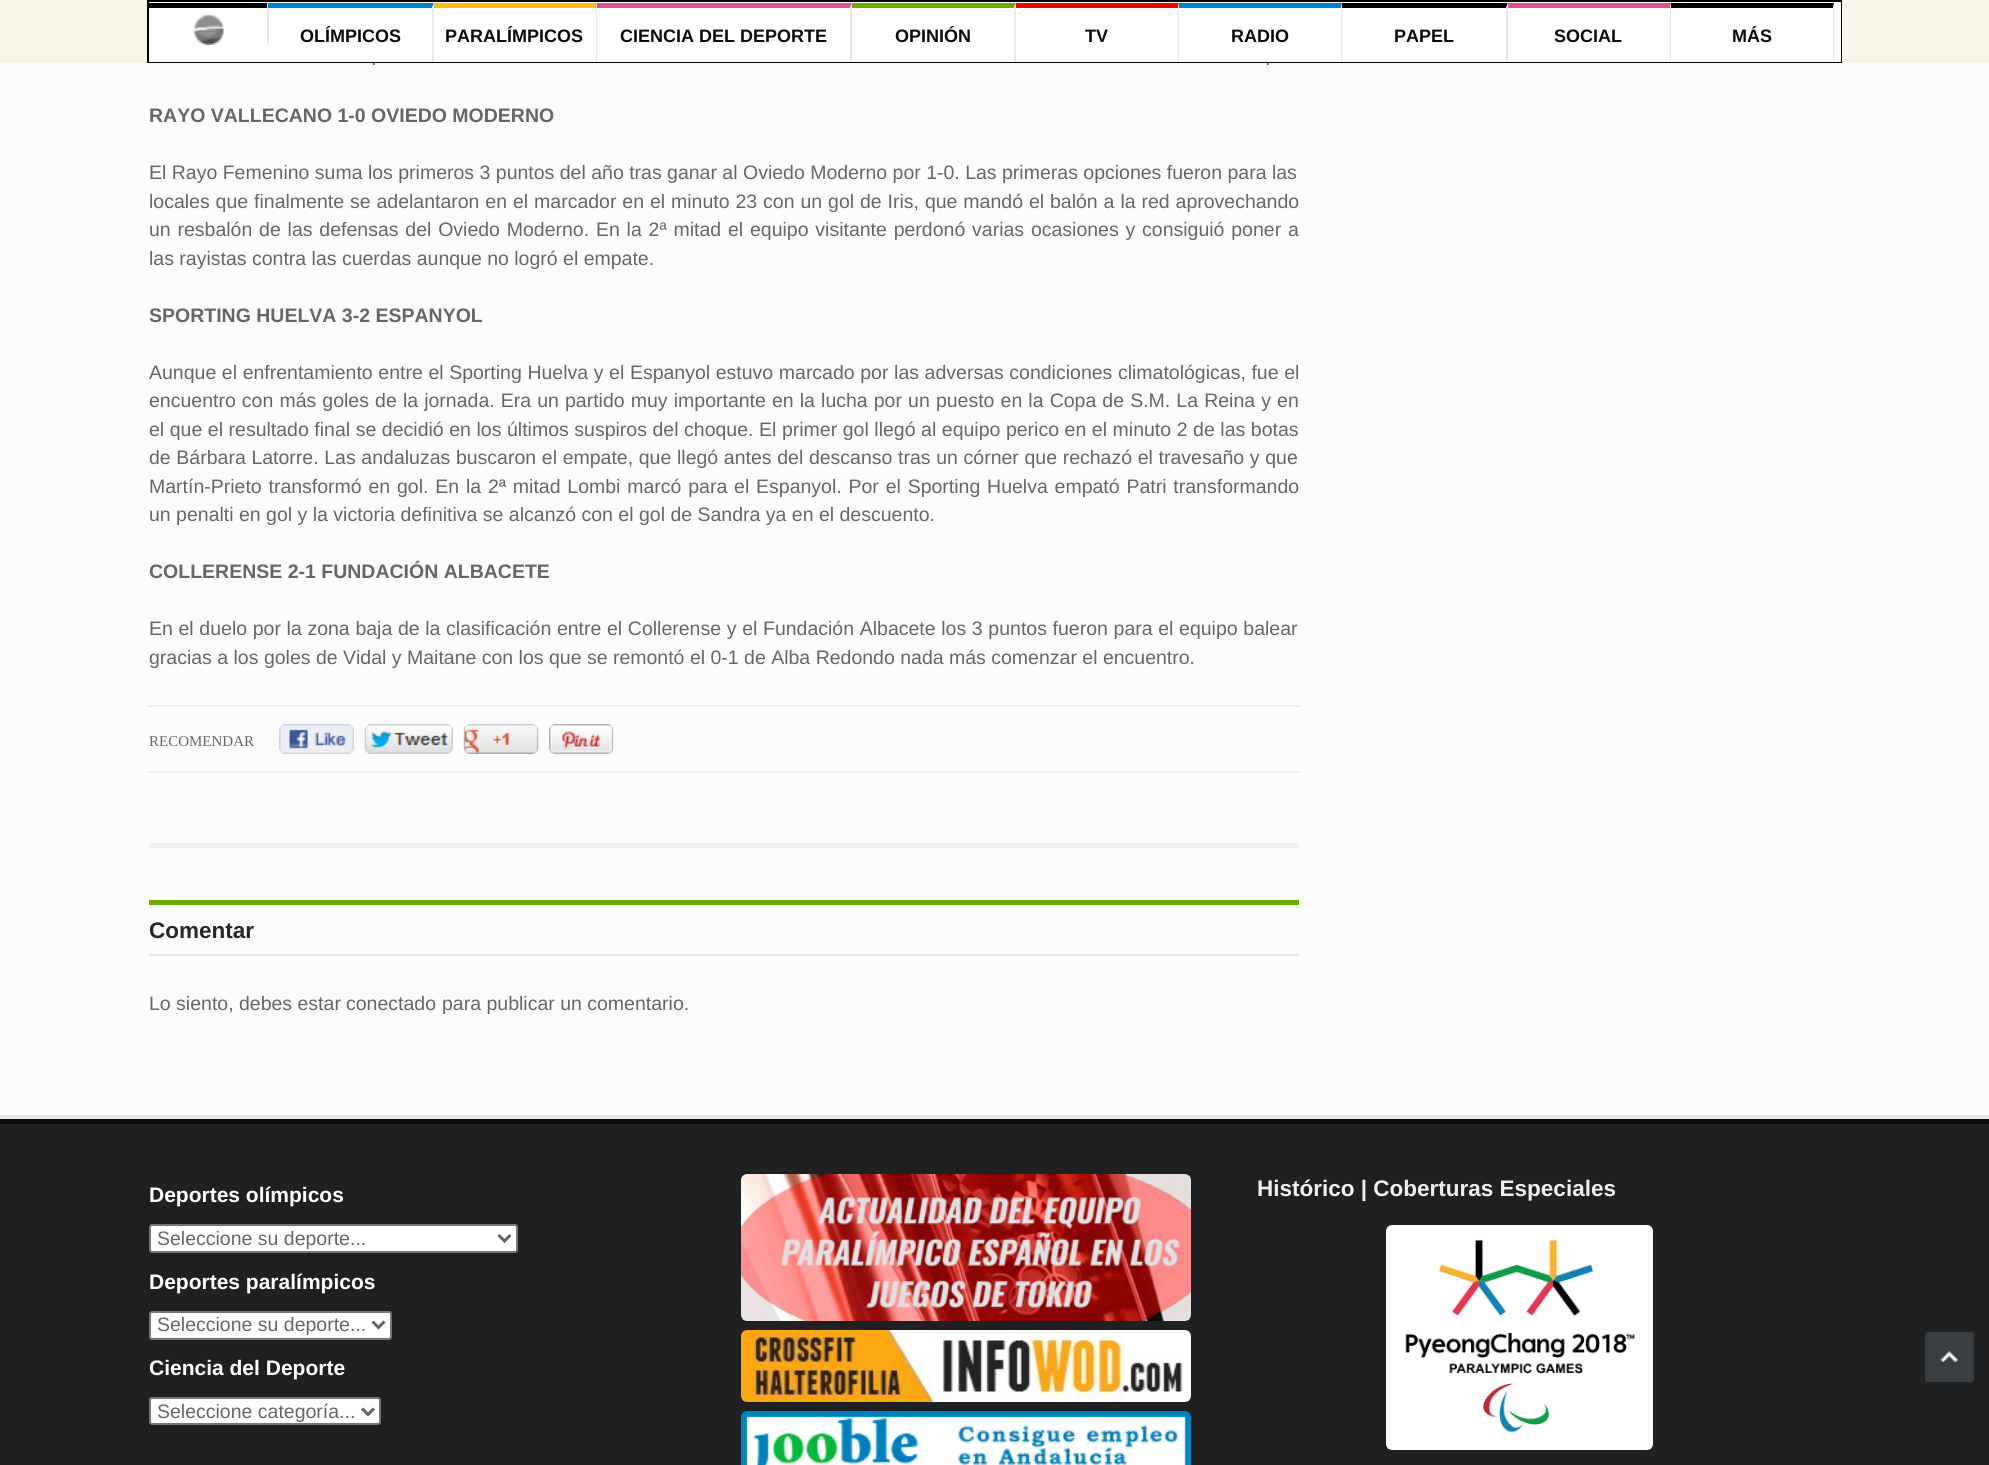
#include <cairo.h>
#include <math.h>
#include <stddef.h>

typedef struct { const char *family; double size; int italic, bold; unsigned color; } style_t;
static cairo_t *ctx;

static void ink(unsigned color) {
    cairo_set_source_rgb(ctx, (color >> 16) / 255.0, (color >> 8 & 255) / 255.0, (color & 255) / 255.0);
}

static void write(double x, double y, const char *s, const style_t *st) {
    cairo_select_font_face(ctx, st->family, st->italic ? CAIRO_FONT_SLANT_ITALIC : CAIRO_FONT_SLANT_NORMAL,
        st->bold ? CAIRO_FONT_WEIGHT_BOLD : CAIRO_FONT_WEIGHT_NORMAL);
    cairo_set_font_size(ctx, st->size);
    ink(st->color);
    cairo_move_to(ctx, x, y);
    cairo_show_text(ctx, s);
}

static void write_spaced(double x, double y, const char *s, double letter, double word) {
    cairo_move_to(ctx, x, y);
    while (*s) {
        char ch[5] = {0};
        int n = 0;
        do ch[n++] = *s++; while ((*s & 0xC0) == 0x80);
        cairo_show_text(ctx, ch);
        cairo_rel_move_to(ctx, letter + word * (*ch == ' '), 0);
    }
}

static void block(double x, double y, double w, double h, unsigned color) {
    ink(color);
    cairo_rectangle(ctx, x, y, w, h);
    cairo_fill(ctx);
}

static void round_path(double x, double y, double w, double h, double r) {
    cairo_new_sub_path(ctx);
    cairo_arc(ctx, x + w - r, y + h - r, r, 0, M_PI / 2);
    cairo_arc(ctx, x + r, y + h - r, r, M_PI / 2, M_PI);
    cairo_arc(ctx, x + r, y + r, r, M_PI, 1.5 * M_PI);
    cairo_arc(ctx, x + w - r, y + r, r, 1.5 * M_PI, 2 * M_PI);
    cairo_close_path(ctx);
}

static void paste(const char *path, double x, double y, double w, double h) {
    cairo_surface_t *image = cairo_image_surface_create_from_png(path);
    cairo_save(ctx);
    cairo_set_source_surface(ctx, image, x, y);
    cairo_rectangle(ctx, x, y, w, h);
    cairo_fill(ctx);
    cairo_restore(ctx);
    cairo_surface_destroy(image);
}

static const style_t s1 = {"Liberation Sans", 19.5, 0, 0, 0x666666};
static const style_t s2 = {"Liberation Sans", 18, 0, 1, 0x0b0b0b};
static const style_t s3 = {"Liberation Sans", 19.5, 0, 1, 0x666666};
static const style_t s4 = {"Liberation Serif", 15, 0, 0, 0x666666};
static const style_t s5 = {"Liberation Sans", 22.5, 0, 1, 0x262626};
static const style_t s6 = {"Liberation Sans", 21, 0, 1, 0xffffff};
static const style_t s7 = {"Liberation Sans", 22.5, 0, 1, 0xefefef};

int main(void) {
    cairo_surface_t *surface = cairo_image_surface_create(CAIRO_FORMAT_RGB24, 1989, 1465);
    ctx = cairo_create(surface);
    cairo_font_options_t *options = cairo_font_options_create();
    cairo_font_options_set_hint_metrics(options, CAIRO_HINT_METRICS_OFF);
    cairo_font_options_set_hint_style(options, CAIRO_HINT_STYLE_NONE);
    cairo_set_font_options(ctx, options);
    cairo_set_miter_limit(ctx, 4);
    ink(0xfcfcfc);
    cairo_paint(ctx);
    write(371, 65, ".", &s1);
    write(1265, 65, ".", &s1);
    block(0, 0, 1989, 63, 0xf7f5e7);
    cairo_rectangle(ctx, 148, 1, 1693, 61);
    ink(0x000000);
    cairo_stroke(ctx);
    block(149, 2, 1692, 60, 0xffffff);
    block(267, 2, 2, 43, 0xe9e9e9);
    paste("pic1.png", 192, 14, 32, 31);
    block(149, 3, 118, 5, 0x000000);
    ink(0x0084c5);
    cairo_new_path(ctx);
    cairo_move_to(ctx, 268, 3);
    cairo_line_to(ctx, 434, 3);
    cairo_line_to(ctx, 432, 8);
    cairo_line_to(ctx, 268, 8);
    cairo_close_path(ctx);
    cairo_fill(ctx);
    ink(0xe9e9e9);
    cairo_new_path(ctx);
    cairo_move_to(ctx, 434, 3);
    cairo_line_to(ctx, 434, 62);
    cairo_line_to(ctx, 432, 62);
    cairo_line_to(ctx, 432, 8);
    cairo_close_path(ctx);
    cairo_fill(ctx);
    write(300, 42, "OLÍMPICOS", &s2);
    ink(0xffba0f);
    cairo_new_path(ctx);
    cairo_move_to(ctx, 434, 3);
    cairo_line_to(ctx, 597, 3);
    cairo_line_to(ctx, 596, 8);
    cairo_line_to(ctx, 434, 8);
    cairo_close_path(ctx);
    cairo_fill(ctx);
    ink(0xe9e9e9);
    cairo_new_path(ctx);
    cairo_move_to(ctx, 597, 3);
    cairo_line_to(ctx, 597, 62);
    cairo_line_to(ctx, 596, 62);
    cairo_line_to(ctx, 596, 8);
    cairo_close_path(ctx);
    cairo_fill(ctx);
    write(445, 42, "PARALÍMPICOS", &s2);
    ink(0xdc5096);
    cairo_new_path(ctx);
    cairo_move_to(ctx, 597, 3);
    cairo_line_to(ctx, 852, 3);
    cairo_line_to(ctx, 850, 8);
    cairo_line_to(ctx, 597, 8);
    cairo_close_path(ctx);
    cairo_fill(ctx);
    ink(0xe9e9e9);
    cairo_new_path(ctx);
    cairo_move_to(ctx, 852, 3);
    cairo_line_to(ctx, 852, 62);
    cairo_line_to(ctx, 850, 62);
    cairo_line_to(ctx, 850, 8);
    cairo_close_path(ctx);
    cairo_fill(ctx);
    write(620, 42, "CIENCIA DEL DEPORTE", &s2);
    ink(0x6cac00);
    cairo_new_path(ctx);
    cairo_move_to(ctx, 852, 3);
    cairo_line_to(ctx, 1016, 3);
    cairo_line_to(ctx, 1014, 8);
    cairo_line_to(ctx, 852, 8);
    cairo_close_path(ctx);
    cairo_fill(ctx);
    ink(0xe9e9e9);
    cairo_new_path(ctx);
    cairo_move_to(ctx, 1016, 3);
    cairo_line_to(ctx, 1016, 62);
    cairo_line_to(ctx, 1014, 62);
    cairo_line_to(ctx, 1014, 8);
    cairo_close_path(ctx);
    cairo_fill(ctx);
    write(895, 42, "OPINIÓN", &s2);
    ink(0xe50700);
    cairo_new_path(ctx);
    cairo_move_to(ctx, 1016, 3);
    cairo_line_to(ctx, 1179, 3);
    cairo_line_to(ctx, 1178, 8);
    cairo_line_to(ctx, 1016, 8);
    cairo_close_path(ctx);
    cairo_fill(ctx);
    ink(0xe9e9e9);
    cairo_new_path(ctx);
    cairo_move_to(ctx, 1179, 3);
    cairo_line_to(ctx, 1179, 62);
    cairo_line_to(ctx, 1178, 62);
    cairo_line_to(ctx, 1178, 8);
    cairo_close_path(ctx);
    cairo_fill(ctx);
    write(1085, 42, "TV", &s2);
    ink(0x0084c5);
    cairo_new_path(ctx);
    cairo_move_to(ctx, 1179, 3);
    cairo_line_to(ctx, 1342, 3);
    cairo_line_to(ctx, 1341, 8);
    cairo_line_to(ctx, 1179, 8);
    cairo_close_path(ctx);
    cairo_fill(ctx);
    ink(0xe9e9e9);
    cairo_new_path(ctx);
    cairo_move_to(ctx, 1342, 3);
    cairo_line_to(ctx, 1342, 62);
    cairo_line_to(ctx, 1341, 62);
    cairo_line_to(ctx, 1341, 8);
    cairo_close_path(ctx);
    cairo_fill(ctx);
    write(1231, 42, "RADIO", &s2);
    ink(0x000000);
    cairo_new_path(ctx);
    cairo_move_to(ctx, 1342, 3);
    cairo_line_to(ctx, 1508, 3);
    cairo_line_to(ctx, 1506, 8);
    cairo_line_to(ctx, 1342, 8);
    cairo_close_path(ctx);
    cairo_fill(ctx);
    ink(0xe9e9e9);
    cairo_new_path(ctx);
    cairo_move_to(ctx, 1508, 3);
    cairo_line_to(ctx, 1508, 62);
    cairo_line_to(ctx, 1506, 62);
    cairo_line_to(ctx, 1506, 8);
    cairo_close_path(ctx);
    cairo_fill(ctx);
    write(1394, 42, "PAPEL", &s2);
    ink(0xdc5096);
    cairo_new_path(ctx);
    cairo_move_to(ctx, 1508, 3);
    cairo_line_to(ctx, 1671, 3);
    cairo_line_to(ctx, 1670, 8);
    cairo_line_to(ctx, 1508, 8);
    cairo_close_path(ctx);
    cairo_fill(ctx);
    ink(0xe9e9e9);
    cairo_new_path(ctx);
    cairo_move_to(ctx, 1671, 3);
    cairo_line_to(ctx, 1671, 62);
    cairo_line_to(ctx, 1670, 62);
    cairo_line_to(ctx, 1670, 8);
    cairo_close_path(ctx);
    cairo_fill(ctx);
    write(1554, 42, "SOCIAL", &s2);
    ink(0x000000);
    cairo_new_path(ctx);
    cairo_move_to(ctx, 1671, 3);
    cairo_line_to(ctx, 1834, 3);
    cairo_line_to(ctx, 1833, 8);
    cairo_line_to(ctx, 1671, 8);
    cairo_close_path(ctx);
    cairo_fill(ctx);
    ink(0xe9e9e9);
    cairo_new_path(ctx);
    cairo_move_to(ctx, 1834, 3);
    cairo_line_to(ctx, 1834, 62);
    cairo_line_to(ctx, 1833, 62);
    cairo_line_to(ctx, 1833, 8);
    cairo_close_path(ctx);
    cairo_fill(ctx);
    write(1732, 42, "MÁS", &s2);
    write(149, 122, "RAYO VALLECANO 1-0 OVIEDO MODERNO", &s3);
    write(149, 179, "El Rayo Femenino suma los primeros 3 puntos del año tras ganar al Oviedo Moderno por 1-0. Las primeras opciones fueron para las", &s1);
    write_spaced(149, 208, "locales que finalmente se adelantaron en el marcador en el minuto 23 con un gol de Iris, que mandó el balón a la red aprovechando", 0, 0.5);
    write_spaced(149, 236, "un resbalón de las defensas del Oviedo Moderno. En la 2ª mitad el equipo visitante perdonó varias ocasiones y consiguió poner a", 0, 1.4);
    write(149, 265, "las rayistas contra las cuerdas aunque no logró el empate.", &s1);
    write(149, 322, "SPORTING HUELVA 3-2 ESPANYOL", &s3);
    cairo_select_font_face(ctx, "Liberation Sans", CAIRO_FONT_SLANT_NORMAL, CAIRO_FONT_WEIGHT_NORMAL);
    write_spaced(149, 379, "Aunque el enfrentamiento entre el Sporting Huelva y el Espanyol estuvo marcado por las adversas condiciones climatológicas, fue el", 0, 0.2);
    write_spaced(149, 407, "encuentro con más goles de la jornada. Era un partido muy importante en la lucha por un puesto en la Copa de S.M. La Reina y en", 0, 0.7);
    write_spaced(149, 436, "el que el resultado final se decidió en los últimos suspiros del choque. El primer gol llegó al equipo perico en el minuto 2 de las botas", 0, 0.15);
    write_spaced(149, 464, "de Bárbara Latorre. Las andaluzas buscaron el empate, que llegó antes del descanso tras un córner que rechazó el travesaño y que", 0, 0.25);
    write_spaced(149, 493, "Martín-Prieto transformó en gol. En la 2ª mitad Lombi marcó para el Espanyol. Por el Sporting Huelva empató Patri transformando", 0, 1.4);
    write(149, 521, "un penalti en gol y la victoria definitiva se alcanzó con el gol de Sandra ya en el descuento.", &s1);
    write(149, 578, "COLLERENSE 2-1 FUNDACIÓN ALBACETE", &s3);
    cairo_select_font_face(ctx, "Liberation Sans", CAIRO_FONT_SLANT_NORMAL, CAIRO_FONT_WEIGHT_NORMAL);
    write_spaced(149, 635, "En el duelo por la zona baja de la clasificación entre el Collerense y el Fundación Albacete los 3 puntos fueron para el equipo balear", 0, 0.25);
    write(149, 664, "gracias a los goles de Vidal y Maitane con los que se remontó el 0-1 de Alba Redondo nada más comenzar el encuentro.", &s1);
    block(149, 705, 1150, 2, 0xededed);
    block(149, 771, 1150, 2, 0xededed);
    write(149, 746, "RECOMENDAR", &s4);
    paste("pic2.png", 279, 724, 75, 30);
    paste("pic3.png", 364, 724, 89, 30);
    paste("pic4.png", 463, 724, 76, 30);
    paste("pic5.png", 549, 724, 65, 30);
    block(149, 843, 1150, 5, 0xf0f0f0);
    block(149, 900, 1150, 5, 0x6cac00);
    block(149, 954, 1150, 2, 0xe3e3e3);
    write(149, 938, "Comentar", &s5);
    write(149, 1010, "Lo siento, debes estar", &s1);
    write(346, 1010, "conectado", &s1);
    write(442, 1010, "para publicar un comentario.", &s1);
    block(0, 1115, 1989, 4, 0xe8e8e8);
    block(0, 1124, 1989, 341, 0x1e2021);
    block(0, 1119, 1989, 5, 0x0a0c0e);
    write(149, 1202, "Deportes olímpicos", &s6);
    round_path(150, 1225, 367, 27, 2);
    cairo_fill_preserve(ctx);
    ink(0x767676);
    cairo_stroke(ctx);
    cairo_new_path(ctx);
    cairo_move_to(ctx, 498.5, 1235);
    cairo_line_to(ctx, 504.5, 1241);
    cairo_line_to(ctx, 510.5, 1235);
    ink(0x666666);
    cairo_set_line_width(ctx, 3);
    cairo_stroke(ctx);
    write(157, 1245, "Seleccione su deporte...", &s1);
    write(149, 1289, "Deportes paralímpicos", &s6);
    round_path(150, 1312, 241, 27, 2);
    cairo_fill_preserve(ctx);
    ink(0x767676);
    cairo_set_line_width(ctx, 2);
    cairo_stroke(ctx);
    cairo_new_path(ctx);
    cairo_move_to(ctx, 372.5, 1321.5);
    cairo_line_to(ctx, 378.5, 1327.5);
    cairo_line_to(ctx, 384.5, 1321.5);
    ink(0x666666);
    cairo_set_line_width(ctx, 3);
    cairo_stroke(ctx);
    write(157, 1331, "Seleccione su deporte...", &s1);
    write(149, 1375, "Ciencia del Deporte", &s6);
    round_path(150, 1398, 230, 26, 2);
    cairo_fill_preserve(ctx);
    ink(0x767676);
    cairo_set_line_width(ctx, 2);
    cairo_stroke(ctx);
    cairo_new_path(ctx);
    cairo_move_to(ctx, 362, 1408.5);
    cairo_line_to(ctx, 368, 1414.5);
    cairo_line_to(ctx, 374, 1408.5);
    ink(0x666666);
    cairo_set_line_width(ctx, 3);
    cairo_stroke(ctx);
    write(157, 1418, "Seleccione categoría...", &s1);
    paste("pic6.png", 741, 1174, 450, 147);
    paste("pic7.png", 741, 1330, 450, 72);
    paste("pic8.png", 741, 1411, 450, 54);
    write(1257, 1196, "Histórico | Coberturas Especiales", &s7);
    paste("pic9.png", 1386, 1225, 267, 225);
    ink(0x3a3e40);
    round_path(1925, 1332, 49, 50, 3);
    cairo_fill(ctx);
    paste("pic10.png", 1940, 1351, 18, 11);
    cairo_surface_write_to_png(surface, "screenshot.png");
    cairo_font_options_destroy(options);
    cairo_destroy(ctx);
    cairo_surface_destroy(surface);
    return 0;
}
